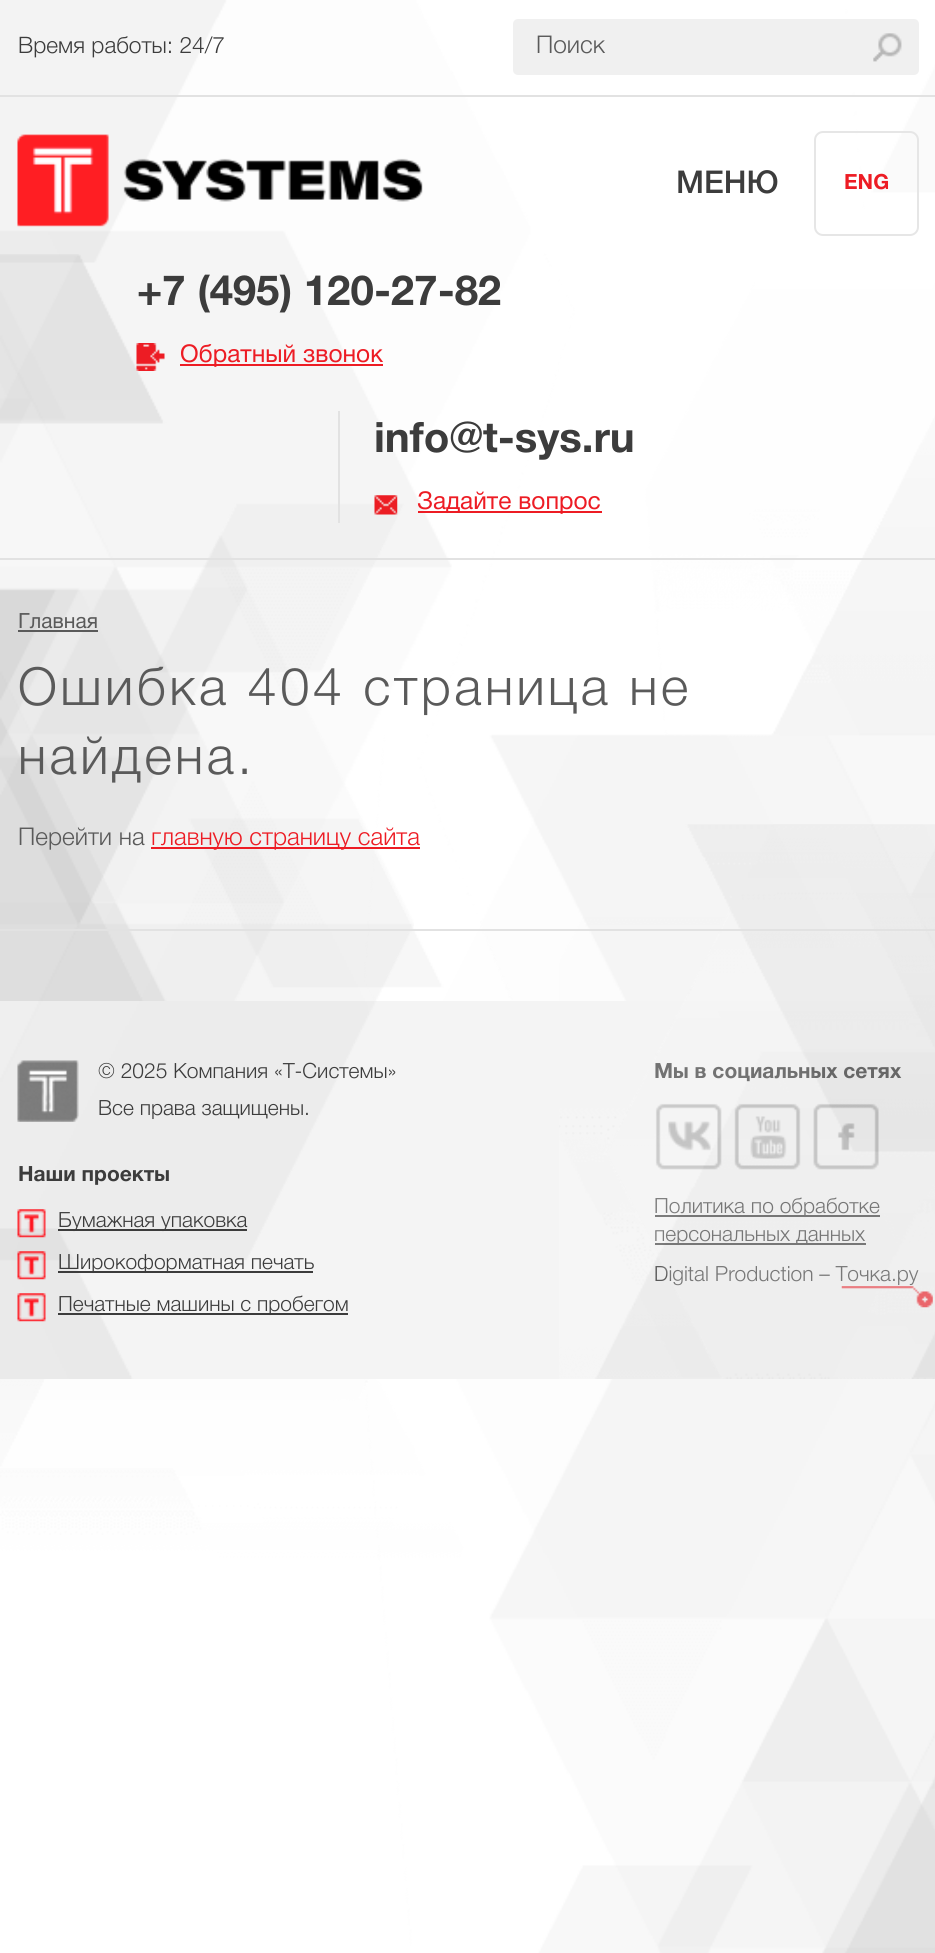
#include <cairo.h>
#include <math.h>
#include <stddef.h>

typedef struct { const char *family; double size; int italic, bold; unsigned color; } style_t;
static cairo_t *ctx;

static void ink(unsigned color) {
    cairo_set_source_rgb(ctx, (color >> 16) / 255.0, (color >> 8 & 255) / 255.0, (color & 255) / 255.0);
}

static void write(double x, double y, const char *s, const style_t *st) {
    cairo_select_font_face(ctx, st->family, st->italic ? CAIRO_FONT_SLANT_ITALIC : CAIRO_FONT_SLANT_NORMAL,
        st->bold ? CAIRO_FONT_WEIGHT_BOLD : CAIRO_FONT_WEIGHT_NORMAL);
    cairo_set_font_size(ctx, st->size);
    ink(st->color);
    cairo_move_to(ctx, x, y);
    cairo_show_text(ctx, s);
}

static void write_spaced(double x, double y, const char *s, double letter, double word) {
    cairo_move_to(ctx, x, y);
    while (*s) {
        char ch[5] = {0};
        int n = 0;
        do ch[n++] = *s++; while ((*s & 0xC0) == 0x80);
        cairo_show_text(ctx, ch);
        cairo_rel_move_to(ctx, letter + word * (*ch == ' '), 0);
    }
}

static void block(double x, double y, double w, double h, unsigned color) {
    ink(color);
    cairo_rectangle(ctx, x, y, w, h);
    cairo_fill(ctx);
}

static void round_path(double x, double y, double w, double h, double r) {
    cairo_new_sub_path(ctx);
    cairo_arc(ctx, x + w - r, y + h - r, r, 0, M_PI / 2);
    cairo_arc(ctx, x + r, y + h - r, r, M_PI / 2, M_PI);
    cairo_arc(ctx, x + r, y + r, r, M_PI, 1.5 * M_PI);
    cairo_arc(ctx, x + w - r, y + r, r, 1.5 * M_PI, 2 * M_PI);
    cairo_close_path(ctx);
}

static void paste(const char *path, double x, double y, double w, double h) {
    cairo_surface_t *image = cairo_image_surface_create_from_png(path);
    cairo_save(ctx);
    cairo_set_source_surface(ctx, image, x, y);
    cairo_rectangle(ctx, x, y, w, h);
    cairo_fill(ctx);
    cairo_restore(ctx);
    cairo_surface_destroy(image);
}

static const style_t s1 = {"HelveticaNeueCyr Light", 22.75, 0, 0, 0x3c3c3c};
static const style_t s2 = {"HelveticaNeueCyr Light", 24.5, 0, 0, 0x5a5a5a};
static const style_t s3 = {"HelveticaNeueCyr Medium", 31.5, 0, 0, 0x3c3c3c};
static const style_t s4 = {"HelveticaNeueCyr", 21, 0, 1, 0xed1c24};
static const style_t s5 = {"HelveticaNeueCyr", 42, 0, 1, 0x3c3c3c};
static const style_t s6 = {"HelveticaNeueCyr", 24.5, 0, 0, 0xed1c24};
static const style_t s7 = {"HelveticaNeueCyr", 21, 0, 1, 0x3c3c3c};
static const style_t s8 = {"HelveticaNeueCyr Light", 21, 0, 0, 0x3c3c3c};
static const style_t s9 = {"HelveticaNeueCyr", 21, 0, 0, 0x5a5a5a};
static const style_t s10 = {"HelveticaNeueCyr Light", 24.5, 0, 0, 0xed1c24};

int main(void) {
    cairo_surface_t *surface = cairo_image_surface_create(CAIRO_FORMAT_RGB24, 935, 1953);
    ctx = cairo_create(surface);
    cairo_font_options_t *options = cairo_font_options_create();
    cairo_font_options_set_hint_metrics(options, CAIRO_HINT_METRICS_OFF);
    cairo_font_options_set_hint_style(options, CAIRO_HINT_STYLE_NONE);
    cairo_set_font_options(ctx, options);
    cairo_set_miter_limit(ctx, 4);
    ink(0xffffff);
    cairo_paint(ctx);
    paste("pic1.png", 0, 0, 935, 1953);
    block(0, 95, 935, 2, 0xe2e2e2);
    write(18, 53, "Время работы: 24/7", &s1);
    ink(0xf0f0f0);
    round_path(513, 19, 406, 56, 5);
    cairo_fill(ctx);
    write(536, 53, "Поиск", &s2);
    paste("pic2.png", 873, 33, 29, 29);
    paste("pic3.png", 17, 134, 406, 93);
    write(676, 193, "МЕНЮ", &s3);
    round_path(815, 132, 103, 103, 8);
    ink(0xe6e6e6);
    cairo_stroke(ctx);
    write(844, 189, "ENG", &s4);
    block(0, 1001, 935, 378, 0xf4f4f4);
    paste("pic6.png", 0, 254, 414, 1125);
    write(137, 305, "+7 (495) 120-27-82", &s5);
    paste("pic4.png", 136, 343, 29, 28);
    block(180, 364, 203, 2, 0xed1c24);
    write(180, 362, "Обратный звонок", &s6);
    block(338, 411, 2, 112, 0xe2e2e2);
    write(374, 452, "info@t-sys.ru", &s5);
    paste("pic5.png", 374, 495, 24, 20);
    block(418, 511, 184, 2, 0xed1c24);
    write(417, 509, "Задайте вопрос", &s6);
    block(0, 558, 935, 2, 0xe2e2e2);
    write(654, 1078, "Мы в социальных сетях", &s7);
    paste("pic12.png", 655, 1103, 67, 67);
    paste("pic13.png", 734, 1103, 67, 67);
    paste("pic14.png", 813, 1103, 66, 67);
    block(655, 1215, 225, 2, 0x3c3c3c);
    write(654, 1213, "Политика по обработке", &s8);
    block(655, 1243, 211, 2, 0x3c3c3c);
    write(654, 1241, "персональных данныx", &s8);
    write(654, 1281, "Digital Production – Точка.ру", &s8);
    paste("pic15.png", 841, 1286, 92, 22);
    paste("pic7.png", 559, 824, 376, 555);
    block(0, 929, 935, 2, 0xe2e2e2);
    write(18, 628, "Главная", &s9);
    block(18, 630, 80, 2, 0x5a5a5a);
    cairo_select_font_face(ctx, "HelveticaNeueCyr Light", CAIRO_FONT_SLANT_NORMAL, CAIRO_FONT_WEIGHT_NORMAL);
    cairo_set_font_size(ctx, 52.5);
    write_spaced(18, 705, "Ошибка 404 страница не", 3.4, 0);
    write_spaced(18, 774, "найдена.", 3.4, 0);
    write(18, 845, "Перейти на", &s2);
    block(151, 847, 269, 2, 0xed1c24);
    write(151, 845, "главную страницу сайта", &s10);
    paste("pic8.png", 17, 1060, 62, 62);
    write(98, 1078, "© 2025 Компания «Т-Системы»", &s8);
    write(98, 1115, "Все права защищены.", &s8);
    write(18, 1181, "Наши проекты", &s7);
    paste("pic9.png", 17, 1209, 29, 29);
    block(58, 1229, 189, 2, 0x3c3c3c);
    write(58, 1227, "Бумажная упаковка", &s8);
    paste("pic10.png", 17, 1251, 29, 29);
    block(58, 1271, 255, 2, 0x3c3c3c);
    write(58, 1269, "Широкоформатная печать", &s8);
    paste("pic11.png", 17, 1293, 29, 29);
    block(58, 1313, 290, 2, 0x3c3c3c);
    write(58, 1311, "Печатные машины с пробегом", &s8);
    cairo_surface_write_to_png(surface, "screenshot.png");
    cairo_font_options_destroy(options);
    cairo_destroy(ctx);
    cairo_surface_destroy(surface);
    return 0;
}
